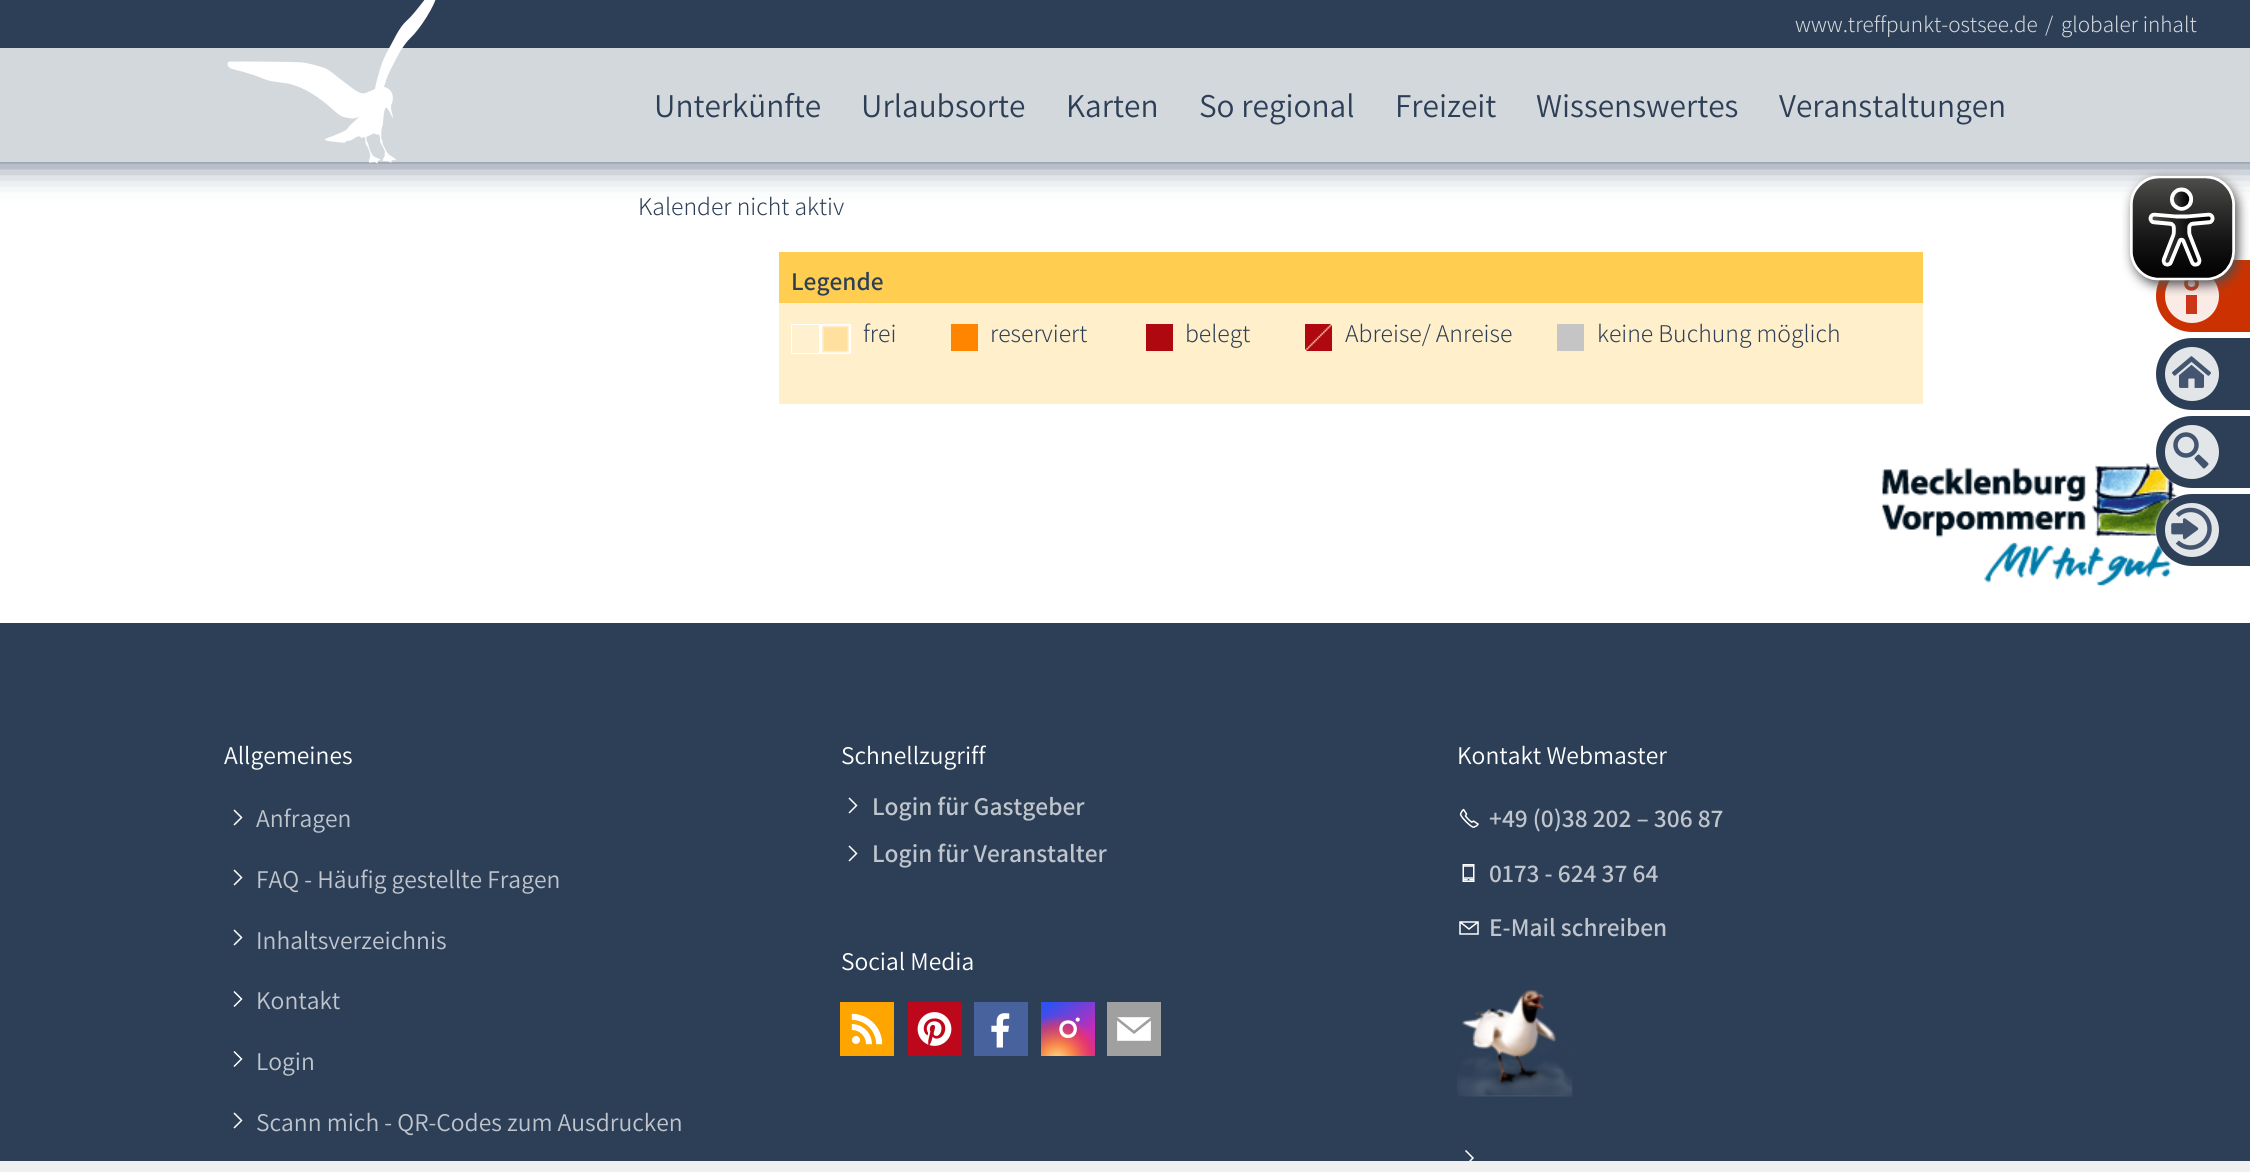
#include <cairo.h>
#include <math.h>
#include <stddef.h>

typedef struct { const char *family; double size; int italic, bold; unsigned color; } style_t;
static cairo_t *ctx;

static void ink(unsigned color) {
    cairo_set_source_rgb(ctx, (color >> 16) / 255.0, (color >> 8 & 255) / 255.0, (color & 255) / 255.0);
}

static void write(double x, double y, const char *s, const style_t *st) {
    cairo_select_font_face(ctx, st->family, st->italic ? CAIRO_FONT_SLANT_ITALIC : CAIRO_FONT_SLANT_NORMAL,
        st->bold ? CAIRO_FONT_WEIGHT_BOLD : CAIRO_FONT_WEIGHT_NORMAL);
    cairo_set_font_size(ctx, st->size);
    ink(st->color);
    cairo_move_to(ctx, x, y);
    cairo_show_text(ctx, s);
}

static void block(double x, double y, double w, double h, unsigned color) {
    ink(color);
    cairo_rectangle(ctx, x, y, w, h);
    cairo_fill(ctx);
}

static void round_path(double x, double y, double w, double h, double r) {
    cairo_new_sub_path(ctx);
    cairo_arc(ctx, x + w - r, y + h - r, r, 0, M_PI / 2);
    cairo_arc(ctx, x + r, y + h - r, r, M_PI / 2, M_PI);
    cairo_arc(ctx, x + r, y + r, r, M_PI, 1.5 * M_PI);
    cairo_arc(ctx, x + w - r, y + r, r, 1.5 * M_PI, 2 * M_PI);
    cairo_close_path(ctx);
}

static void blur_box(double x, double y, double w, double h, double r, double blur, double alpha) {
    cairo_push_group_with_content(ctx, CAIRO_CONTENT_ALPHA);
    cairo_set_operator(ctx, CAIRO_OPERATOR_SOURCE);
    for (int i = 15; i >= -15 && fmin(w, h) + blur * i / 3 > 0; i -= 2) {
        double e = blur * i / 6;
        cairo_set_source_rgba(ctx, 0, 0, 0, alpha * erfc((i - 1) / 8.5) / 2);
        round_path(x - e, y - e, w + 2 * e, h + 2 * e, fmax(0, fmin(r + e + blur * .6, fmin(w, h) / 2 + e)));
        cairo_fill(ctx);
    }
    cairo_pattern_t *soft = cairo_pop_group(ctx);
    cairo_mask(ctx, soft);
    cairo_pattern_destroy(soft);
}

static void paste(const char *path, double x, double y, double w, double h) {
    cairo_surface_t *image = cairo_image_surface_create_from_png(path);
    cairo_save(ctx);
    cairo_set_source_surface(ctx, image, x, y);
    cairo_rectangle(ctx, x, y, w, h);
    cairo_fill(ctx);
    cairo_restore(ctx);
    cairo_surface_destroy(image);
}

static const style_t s1 = {"Assistant Light", 23, 0, 0, 0xd5d9dd};
static const style_t s2 = {"Assistant Light", 25.5, 0, 0, 0x2d3f57};
static const style_t s3 = {"Assistant SemiBold", 25.5, 0, 0, 0x2d3f57};
static const style_t s4 = {"Assistant", 33.25, 0, 0, 0x2d3f57};
static const style_t s5 = {"Assistant", 25.5, 0, 0, 0xffffff};
static const style_t s6 = {"Assistant", 25.5, 0, 0, 0xc0c5cd};
static const style_t s7 = {"Assistant SemiBold", 25.5, 0, 0, 0xc0c5cd};

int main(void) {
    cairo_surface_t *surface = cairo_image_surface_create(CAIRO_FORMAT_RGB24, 2250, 1172);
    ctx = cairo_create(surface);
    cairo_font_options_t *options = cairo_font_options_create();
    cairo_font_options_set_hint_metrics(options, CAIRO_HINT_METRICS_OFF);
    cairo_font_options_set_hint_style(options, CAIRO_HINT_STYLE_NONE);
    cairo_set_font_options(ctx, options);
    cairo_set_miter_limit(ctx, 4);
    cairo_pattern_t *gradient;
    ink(0xffffff);
    cairo_paint(ctx);
    ink(0x3e526c);
    blur_box(-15, -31, 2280, 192, 0, 17, 1);
    block(0, 0, 2250, 48, 0x2d3f57);
    write(1795, 32, "www.treffpunkt-ostsee.de", &s1);
    write(2045, 32, "/", &s1);
    write(2061, 32, "globaler inhalt", &s1);
    write(638, 215, "Kalender nicht aktiv", &s2);
    block(779, 252, 1144, 51, 0xffcd50);
    write(791, 290, "Legende", &s3);
    block(779, 303, 1144, 101, 0xfff0cb);
    block(791, 324, 60, 30, 0xffffff);
    block(792, 325, 27, 28, 0xfff0d0);
    write(863, 342, "frei", &s2);
    paste("pic1.png", 822, 325, 27, 28);
    block(951, 324, 27, 27, 0xff8400);
    write(990, 342, "reserviert", &s2);
    block(1146, 324, 27, 27, 0xb0080f);
    write(1185, 342, "belegt", &s2);
    paste("pic2.png", 1305, 324, 27, 27);
    write(1345, 342, "Abreise/ Anreise", &s2);
    block(1557, 324, 27, 27, 0xc5c5c5);
    write(1597, 342, "keine Buchung möglich", &s2);
    block(0, 48, 2250, 114, 0xd3d8dd);
    paste("pic3.png", 227, 0, 209, 164);
    write(654, 117, "Unterkünfte", &s4);
    write(861, 117, "Urlaubsorte", &s4);
    write(1066, 117, "Karten", &s4);
    write(1199, 117, "So regional", &s4);
    write(1395, 117, "Freizeit", &s4);
    write(1536, 117, "Wissenswertes", &s4);
    write(1779, 117, "Veranstaltungen", &s4);
    ink(0xcc3201);
    cairo_new_path(ctx);
    cairo_move_to(ctx, 2192, 260);
    cairo_line_to(ctx, 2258, 260);
    cairo_line_to(ctx, 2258, 332);
    cairo_line_to(ctx, 2192, 332);
    cairo_curve_to(ctx, 2172, 332, 2156, 316, 2156, 296);
    cairo_curve_to(ctx, 2156, 276, 2172, 260, 2192, 260);
    cairo_close_path(ctx);
    cairo_fill(ctx);
    ink(0xfaebe6);
    cairo_arc(ctx, 2192, 296, 27, 0, 2 * M_PI);
    cairo_fill(ctx);
    cairo_new_path(ctx);
    cairo_move_to(ctx, 2197, 283.5);
    cairo_curve_to(ctx, 2197, 290.5, 2186, 290.5, 2186, 283.5);
    cairo_curve_to(ctx, 2186, 276.5, 2197, 276.5, 2197, 283.5);
    cairo_close_path(ctx);
    ink(0xcc3517);
    cairo_set_line_width(ctx, 3.8);
    cairo_stroke(ctx);
    block(2186, 295, 11, 19, 0xcc3517);
    ink(0x2d3f57);
    cairo_new_path(ctx);
    cairo_move_to(ctx, 2192, 338);
    cairo_line_to(ctx, 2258, 338);
    cairo_line_to(ctx, 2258, 410);
    cairo_line_to(ctx, 2192, 410);
    cairo_curve_to(ctx, 2172, 410, 2156, 394, 2156, 374);
    cairo_curve_to(ctx, 2156, 354, 2172, 338, 2192, 338);
    cairo_close_path(ctx);
    cairo_fill(ctx);
    ink(0xe3e6e9);
    cairo_arc(ctx, 2192, 374, 27, 0, 2 * M_PI);
    cairo_fill(ctx);
    paste("pic4.png", 2172, 356, 39, 32);
    paste("pic5.png", 1882, 463, 295, 123);
    ink(0xffffff);
    blur_box(2156, 416, 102, 72, 36, 1.5, 1);
    ink(0x2d3f57);
    cairo_new_path(ctx);
    cairo_move_to(ctx, 2192, 416);
    cairo_line_to(ctx, 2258, 416);
    cairo_line_to(ctx, 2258, 488);
    cairo_line_to(ctx, 2192, 488);
    cairo_curve_to(ctx, 2172, 488, 2156, 472, 2156, 452);
    cairo_curve_to(ctx, 2156, 432, 2172, 416, 2192, 416);
    cairo_close_path(ctx);
    cairo_fill(ctx);
    ink(0xe3e6e9);
    cairo_arc(ctx, 2192, 452, 27, 0, 2 * M_PI);
    cairo_fill(ctx);
    cairo_arc(ctx, 2186, 445, 10.5, 0, 2 * M_PI);
    ink(0x43546f);
    cairo_set_line_width(ctx, 4.5);
    cairo_stroke(ctx);
    cairo_new_path(ctx);
    cairo_move_to(ctx, 2196, 458.5);
    cairo_line_to(ctx, 2204, 467);
    cairo_line_to(ctx, 2207, 464);
    cairo_line_to(ctx, 2198.5, 456);
    cairo_close_path(ctx);
    cairo_fill_preserve(ctx);
    cairo_set_line_width(ctx, 3);
    cairo_set_line_join(ctx, CAIRO_LINE_JOIN_ROUND);
    cairo_stroke(ctx);
    ink(0xffffff);
    blur_box(2156, 494, 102, 72, 36, 1.5, 1);
    ink(0x2d3f57);
    cairo_new_path(ctx);
    cairo_move_to(ctx, 2192, 494);
    cairo_line_to(ctx, 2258, 494);
    cairo_line_to(ctx, 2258, 566);
    cairo_line_to(ctx, 2192, 566);
    cairo_curve_to(ctx, 2172, 566, 2156, 550, 2156, 530);
    cairo_curve_to(ctx, 2156, 510, 2172, 494, 2192, 494);
    cairo_close_path(ctx);
    cairo_fill(ctx);
    ink(0xe3e6e9);
    cairo_arc(ctx, 2192, 530, 27, 0, 2 * M_PI);
    cairo_fill(ctx);
    paste("pic6.png", 2171, 507, 41, 43);
    block(0, 623, 2250, 538, 0x2d3f57);
    write(224, 764, "Allgemeines", &s5);
    paste("pic7.png", 233, 809, 10, 17);
    write(256, 827, "Anfragen", &s6);
    paste("pic7.png", 233, 869, 10, 17);
    write(256, 888, "FAQ - Häufig gestellte Fragen", &s6);
    paste("pic7.png", 233, 929, 10, 17);
    write(256, 949, "Inhaltsverzeichnis", &s6);
    paste("pic8.png", 233, 991, 10, 16);
    write(256, 1009, "Kontakt", &s6);
    paste("pic8.png", 233, 1051, 10, 16);
    write(256, 1070, "Login", &s6);
    paste("pic7.png", 233, 1112, 10, 17);
    write(256, 1131, "Scann mich - QR-Codes zum Ausdrucken", &s6);
    write(841, 764, "Schnellzugriff", &s5);
    cairo_new_path(ctx);
    cairo_move_to(ctx, 849, 798);
    cairo_line_to(ctx, 856.5, 805.5);
    cairo_line_to(ctx, 849, 813);
    cairo_set_line_width(ctx, 1.5);
    cairo_set_line_join(ctx, CAIRO_LINE_JOIN_MITER);
    cairo_stroke(ctx);
    write(872, 815, "Login für Gastgeber", &s7);
    cairo_new_path(ctx);
    cairo_move_to(ctx, 849, 846);
    cairo_line_to(ctx, 856.5, 853.5);
    cairo_line_to(ctx, 849, 861);
    ink(0xffffff);
    cairo_stroke(ctx);
    write(872, 862, "Login für Veranstalter", &s7);
    write(841, 970, "Social Media", &s5);
    block(840, 1002, 54, 54, 0xffa500);
    paste("pic9.png", 851, 1013, 32, 32);
    block(908, 1002, 54, 54, 0xbd081c);
    paste("pic10.png", 917, 1012, 35, 34);
    block(974, 1002, 54, 54, 0x48629d);
    paste("pic11.png", 991, 1013, 19, 35);
    gradient = cairo_pattern_create_linear(1046, 998, 1090, 1060);
    cairo_pattern_add_color_stop_rgba(gradient, 0.1, 0.188, 0.318, 0.945, 1);
    cairo_pattern_add_color_stop_rgba(gradient, 0.7, 0.788, 0.169, 0.718, 1);
    cairo_set_source(ctx, gradient);
    cairo_pattern_destroy(gradient);
    cairo_rectangle(ctx, 1041, 1002, 54, 54);
    cairo_fill(ctx);
    gradient = cairo_pattern_create_radial(1057, 1061, 0, 1057, 1061, 70);
    cairo_pattern_add_color_stop_rgba(gradient, 0, 1, 0.914, 0.576, 1);
    cairo_pattern_add_color_stop_rgba(gradient, 0.25, 1, 0.569, 0.22, 0.89);
    cairo_pattern_add_color_stop_rgba(gradient, 0.5, 0.969, 0.235, 0.235, 0.55);
    cairo_pattern_add_color_stop_rgba(gradient, 0.65, 0.969, 0.235, 0.235, 0);
    cairo_set_source(ctx, gradient);
    cairo_pattern_destroy(gradient);
    cairo_rectangle(ctx, 1041, 1016, 54, 40);
    cairo_fill(ctx);
    paste("pic12.png", 1059, 1017, 21, 21);
    block(1107, 1002, 54, 54, 0xa0a0a0);
    paste("pic13.png", 1117, 1017, 34, 24);
    write(1457, 764, "Kontakt Webmaster", &s5);
    paste("pic14.png", 1459, 808, 20, 20);
    write(1489, 827, "+49 (0)38 202 – 306 87", &s7);
    paste("pic15.png", 1462, 864, 13, 18);
    write(1489, 882, "0173 - 624 37 64", &s7);
    cairo_new_path(ctx);
    cairo_move_to(ctx, 1460, 922);
    cairo_line_to(ctx, 1478, 922);
    cairo_line_to(ctx, 1478, 934);
    cairo_line_to(ctx, 1460, 934);
    cairo_close_path(ctx);
    cairo_move_to(ctx, 1460, 922);
    cairo_line_to(ctx, 1469, 929);
    cairo_line_to(ctx, 1478, 922);
    ink(0xffffff);
    cairo_stroke(ctx);
    write(1489, 936, "E-Mail schreiben", &s7);
    paste("pic16.png", 1457, 990, 116, 107);
    cairo_new_path(ctx);
    cairo_move_to(ctx, 1465.5, 1150.5);
    cairo_line_to(ctx, 1473, 1158);
    cairo_line_to(ctx, 1465.5, 1165.5);
    ink(0xffffff);
    cairo_stroke(ctx);
    paste("pic17.png", 2122, 170, 127, 126);
    block(0, 1161, 2250, 11, 0xf0f0f0);
    cairo_surface_write_to_png(surface, "screenshot.png");
    cairo_font_options_destroy(options);
    cairo_destroy(ctx);
    cairo_surface_destroy(surface);
    return 0;
}
